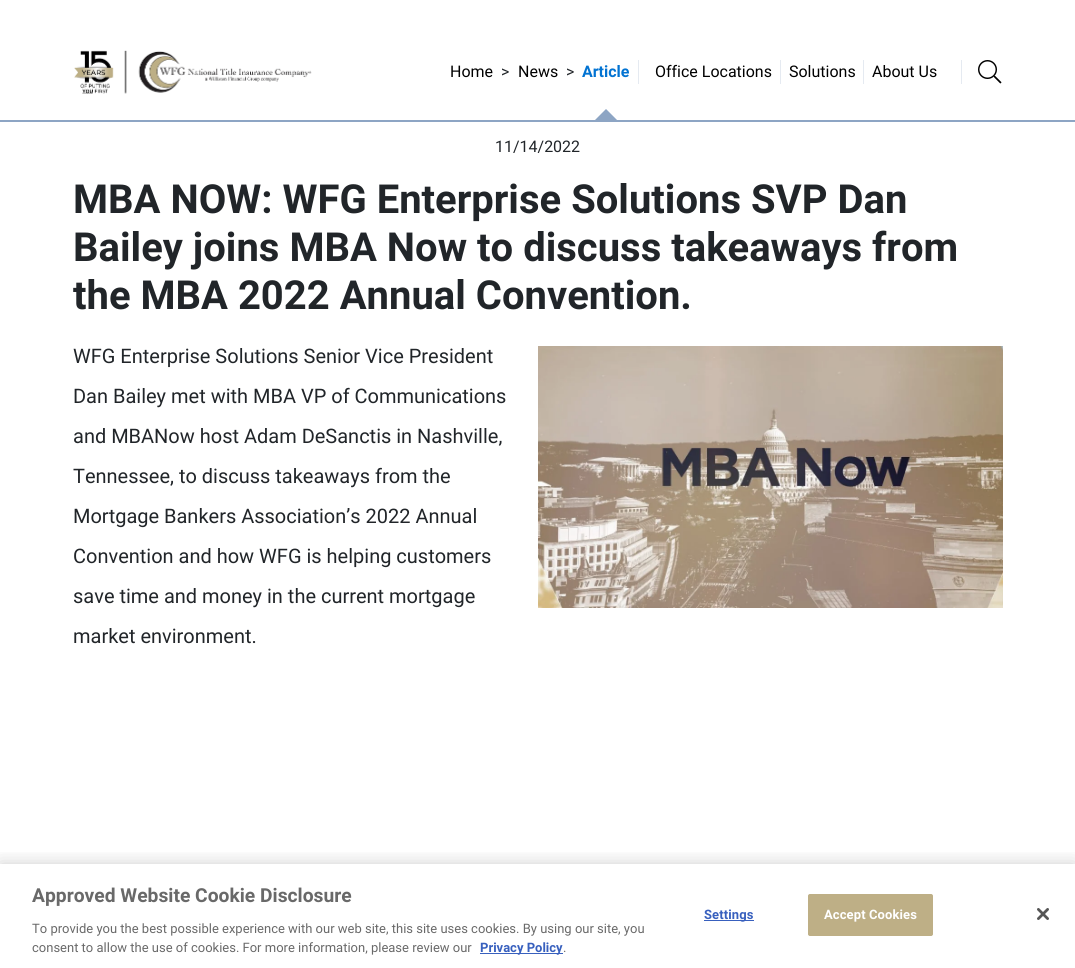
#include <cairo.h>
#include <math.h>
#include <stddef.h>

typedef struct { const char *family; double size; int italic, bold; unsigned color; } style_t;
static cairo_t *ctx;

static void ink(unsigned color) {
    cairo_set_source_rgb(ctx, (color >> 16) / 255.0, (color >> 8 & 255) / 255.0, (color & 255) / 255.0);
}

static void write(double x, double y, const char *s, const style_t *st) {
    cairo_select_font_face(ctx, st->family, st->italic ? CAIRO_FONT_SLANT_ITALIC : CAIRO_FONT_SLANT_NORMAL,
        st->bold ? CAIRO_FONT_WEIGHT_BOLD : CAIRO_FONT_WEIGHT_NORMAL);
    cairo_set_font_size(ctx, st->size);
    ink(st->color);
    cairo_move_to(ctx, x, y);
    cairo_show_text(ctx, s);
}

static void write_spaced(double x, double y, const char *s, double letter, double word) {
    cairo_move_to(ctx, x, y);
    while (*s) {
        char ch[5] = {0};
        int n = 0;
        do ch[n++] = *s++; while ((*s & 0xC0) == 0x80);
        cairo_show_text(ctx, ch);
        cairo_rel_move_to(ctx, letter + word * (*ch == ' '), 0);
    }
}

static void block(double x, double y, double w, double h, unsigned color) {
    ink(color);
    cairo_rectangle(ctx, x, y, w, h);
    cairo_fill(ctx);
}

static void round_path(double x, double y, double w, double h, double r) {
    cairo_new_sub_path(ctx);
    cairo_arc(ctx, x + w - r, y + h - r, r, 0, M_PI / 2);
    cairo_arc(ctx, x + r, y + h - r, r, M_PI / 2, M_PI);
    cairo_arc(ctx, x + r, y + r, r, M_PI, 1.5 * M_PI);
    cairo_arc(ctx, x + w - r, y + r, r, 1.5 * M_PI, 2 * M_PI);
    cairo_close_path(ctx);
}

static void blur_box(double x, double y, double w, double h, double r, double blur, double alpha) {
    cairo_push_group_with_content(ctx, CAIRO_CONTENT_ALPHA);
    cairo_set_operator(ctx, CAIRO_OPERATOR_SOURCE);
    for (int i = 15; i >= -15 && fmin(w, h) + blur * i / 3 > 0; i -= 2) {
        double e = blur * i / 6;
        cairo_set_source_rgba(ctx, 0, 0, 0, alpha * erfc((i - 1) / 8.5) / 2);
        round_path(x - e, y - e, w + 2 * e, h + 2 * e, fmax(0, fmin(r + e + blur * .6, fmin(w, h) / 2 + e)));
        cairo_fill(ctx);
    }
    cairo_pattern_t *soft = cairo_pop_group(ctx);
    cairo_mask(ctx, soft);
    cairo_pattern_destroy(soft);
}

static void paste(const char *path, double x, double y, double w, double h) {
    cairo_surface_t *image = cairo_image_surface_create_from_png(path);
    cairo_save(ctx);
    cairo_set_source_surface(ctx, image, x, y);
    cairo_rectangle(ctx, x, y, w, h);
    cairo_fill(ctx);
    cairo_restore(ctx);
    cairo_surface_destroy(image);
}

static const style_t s1 = {"Roboto", 16, 0, 0, 0x000000};
static const style_t s2 = {"Roboto", 16, 0, 0, 0x212529};
static const style_t s3 = {"Roboto", 16, 0, 1, 0x0273d2};
static const style_t s4 = {"Roboto", 40, 0, 1, 0x212529};
static const style_t s5 = {"Roboto", 20, 0, 0, 0x212529};
static const style_t s6 = {"Roboto", 19.25, 0, 1, 0x696969};
static const style_t s7 = {"Roboto", 13, 0, 0, 0x696969};
static const style_t s8 = {"Roboto", 13, 0, 1, 0x3860be};

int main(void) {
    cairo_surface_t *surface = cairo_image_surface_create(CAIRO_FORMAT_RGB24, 1075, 968);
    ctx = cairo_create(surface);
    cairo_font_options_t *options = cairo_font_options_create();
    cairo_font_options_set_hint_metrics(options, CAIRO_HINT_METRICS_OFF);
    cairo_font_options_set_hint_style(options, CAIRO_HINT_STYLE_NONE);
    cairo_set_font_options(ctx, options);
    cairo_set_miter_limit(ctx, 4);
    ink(0xffffff);
    cairo_paint(ctx);
    block(0, 120, 1075, 2, 0x8da5c4);
    paste("pic1.png", 74, 50, 238, 44);
    block(638, 60, 1, 24, 0xe5eaf1);
    write(450, 77, "Home", &s1);
    write(501, 77, ">", &s2);
    write(518, 77, "News", &s1);
    write(566, 77, ">", &s2);
    write(582, 77, "Article", &s3);
    ink(0x8da5c4);
    cairo_new_path(ctx);
    cairo_move_to(ctx, 618, 121);
    cairo_line_to(ctx, 594, 121);
    cairo_line_to(ctx, 606, 109);
    cairo_close_path(ctx);
    cairo_fill(ctx);
    block(780, 60, 1, 24, 0xe5eaf1);
    write(655, 77, "Office Locations", &s1);
    block(863, 60, 1, 24, 0xe5eaf1);
    write(789, 77, "Solutions", &s1);
    write(872, 77, "About Us", &s1);
    block(961, 60, 1, 24, 0xe5eaf1);
    paste("pic2.png", 978, 60, 24, 24);
    write(495, 152, "11/14/2022", &s2);
    write(73, 213, "MBA NOW: WFG Enterprise Solutions SVP Dan", &s4);
    write(73, 261, "Bailey joins MBA Now to discuss takeaways from", &s4);
    write(73, 309, "the MBA 2022 Annual Convention.", &s4);
    write(73, 363, "WFG Enterprise Solutions Senior Vice President", &s5);
    write(73, 403, "Dan Bailey met with MBA VP of Communications", &s5);
    write(73, 443, "and MBANow host Adam DeSanctis in Nashville,", &s5);
    write(73, 483, "Tennessee, to discuss takeaways from the", &s5);
    write(73, 523, "Mortgage Bankers Association’s 2022 Annual", &s5);
    write(73, 563, "Convention and how WFG is helping customers", &s5);
    write(73, 603, "save time and money in the current mortgage", &s5);
    write(73, 643, "market environment.", &s5);
    paste("pic3.png", 538, 346, 465, 262);
    cairo_save(ctx);
    cairo_rectangle(ctx, 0, 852, 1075, 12);
    cairo_clip(ctx);
    ink(0x000000);
    blur_box(0, 864, 1075, 104, 0, 9, 0.2);
    cairo_restore(ctx);
    write(32, 902, "Approved Website Cookie Disclosure", &s6);
    write(32, 933, "To provide you the best possible experience with our web site, this site uses cookies. By using our site, you", &s7);
    write(32, 952, "consent to allow the use of cookies. For more information, please review our", &s7);
    block(480, 953, 83, 1, 0x3860be);
    write(480, 952, "Privacy Policy", &s8);
    write(563, 952, ".", &s7);
    block(704, 920, 50, 1, 0x3860be);
    cairo_select_font_face(ctx, "Roboto", CAIRO_FONT_SLANT_NORMAL, CAIRO_FONT_WEIGHT_BOLD);
    write_spaced(704, 919, "Settings", 0.1, 0);
    ink(0xbeaf86);
    round_path(808.5, 894.5, 124, 41, 1.5);
    cairo_fill_preserve(ctx);
    cairo_set_line_width(ctx, 1);
    cairo_stroke(ctx);
    ink(0xffffff);
    write_spaced(824, 919, "Accept Cookies", 0.1, 0);
    paste("pic4.png", 1037, 908, 12, 12);
    cairo_surface_write_to_png(surface, "screenshot.png");
    cairo_font_options_destroy(options);
    cairo_destroy(ctx);
    cairo_surface_destroy(surface);
    return 0;
}
